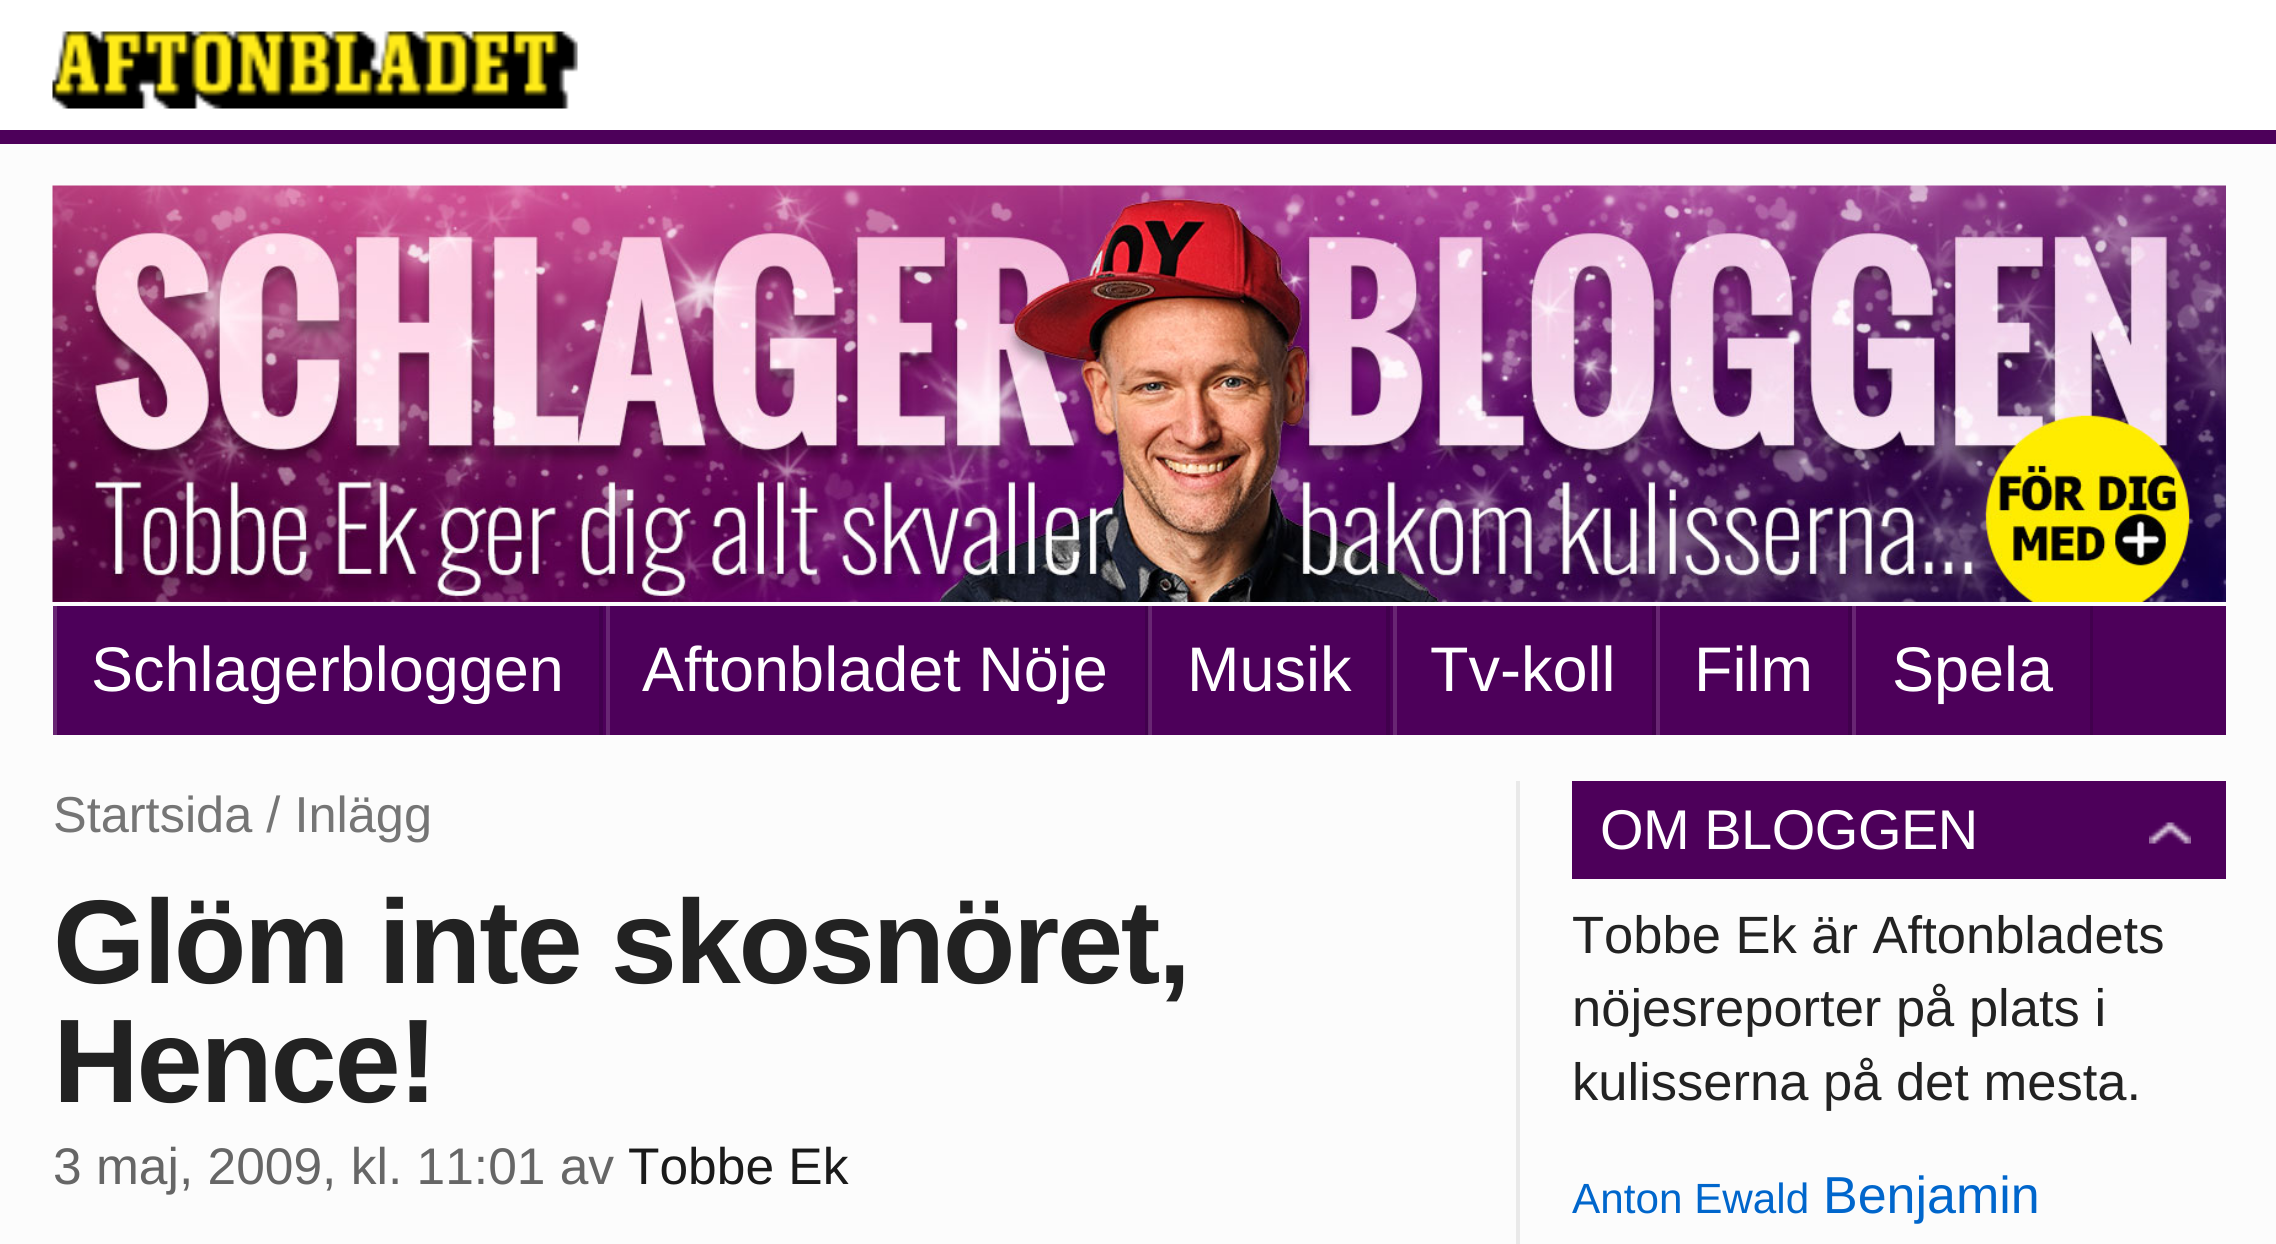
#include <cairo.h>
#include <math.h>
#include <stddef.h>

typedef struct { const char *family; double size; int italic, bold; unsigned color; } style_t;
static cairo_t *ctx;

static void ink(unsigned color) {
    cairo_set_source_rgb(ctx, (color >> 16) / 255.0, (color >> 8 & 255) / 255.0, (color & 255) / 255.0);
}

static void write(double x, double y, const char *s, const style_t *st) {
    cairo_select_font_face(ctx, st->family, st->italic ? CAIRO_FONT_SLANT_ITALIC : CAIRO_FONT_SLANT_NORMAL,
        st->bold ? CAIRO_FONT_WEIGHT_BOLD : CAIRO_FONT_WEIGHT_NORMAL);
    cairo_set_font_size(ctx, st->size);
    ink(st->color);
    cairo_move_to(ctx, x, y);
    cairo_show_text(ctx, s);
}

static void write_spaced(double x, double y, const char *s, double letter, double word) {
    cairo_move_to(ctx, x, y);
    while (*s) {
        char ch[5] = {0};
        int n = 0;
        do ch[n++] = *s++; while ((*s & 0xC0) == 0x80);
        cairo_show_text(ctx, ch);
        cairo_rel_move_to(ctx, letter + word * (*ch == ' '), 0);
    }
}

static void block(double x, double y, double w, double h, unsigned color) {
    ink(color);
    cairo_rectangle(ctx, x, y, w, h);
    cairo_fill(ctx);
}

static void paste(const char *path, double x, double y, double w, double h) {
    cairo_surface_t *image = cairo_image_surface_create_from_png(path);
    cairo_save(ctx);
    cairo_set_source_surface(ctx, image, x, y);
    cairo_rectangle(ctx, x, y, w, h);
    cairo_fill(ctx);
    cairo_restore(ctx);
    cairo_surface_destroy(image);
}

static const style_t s1 = {"Liberation Sans", 63, 0, 0, 0xffffff};
static const style_t s2 = {"Liberation Sans", 50.5, 0, 0, 0x757575};
static const style_t s3 = {"Liberation Sans", 51.5, 0, 0, 0x666666};
static const style_t s4 = {"Liberation Sans", 51.5, 0, 0, 0x1a1a1a};
static const style_t s5 = {"Liberation Sans", 52.5, 0, 0, 0x222222};
static const style_t s6 = {"Liberation Sans", 42.25, 0, 0, 0x0066cc};
static const style_t s7 = {"Liberation Sans", 52, 0, 0, 0x0066cc};

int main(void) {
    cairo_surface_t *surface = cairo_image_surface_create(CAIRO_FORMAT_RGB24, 2276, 1244);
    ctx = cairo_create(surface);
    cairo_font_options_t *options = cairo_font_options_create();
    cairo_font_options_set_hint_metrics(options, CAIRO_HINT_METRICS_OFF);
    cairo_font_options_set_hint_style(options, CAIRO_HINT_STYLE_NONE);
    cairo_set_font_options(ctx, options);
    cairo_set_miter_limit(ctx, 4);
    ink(0xfcfcfc);
    cairo_paint(ctx);
    block(0, 0, 2276, 130, 0xffffff);
    block(0, 130, 2276, 14, 0x4d005a);
    paste("pic1.png", 52, 31, 526, 78);
    paste("pic2.png", 52, 185, 2174, 417);
    block(57, 606, 2169, 129, 0x4d005a);
    block(1149, 606, 3, 129, 0x682673);
    block(53, 606, 4, 129, 0x682673);
    block(599, 606, 4, 129, 0x41004d);
    write(91, 691, "Schlagerbloggen", &s1);
    block(606, 606, 4, 129, 0x682673);
    block(1145, 606, 3, 129, 0x41004d);
    block(1148, 606, 1, 129, 0x5e2668);
    write(642, 691, "Aftonbladet Nöje", &s1);
    block(1386, 606, 4, 129, 0x41004d);
    write(1187, 691, "Musik", &s1);
    block(1393, 606, 4, 129, 0x682673);
    block(1652, 606, 4, 129, 0x41004d);
    write(1430, 691, "Tv-koll", &s1);
    block(1656, 606, 4, 129, 0x682673);
    block(1848, 606, 4, 129, 0x41004d);
    write(1694, 691, "Film", &s1);
    block(1852, 606, 4, 129, 0x682673);
    block(2090, 606, 3, 129, 0x41004d);
    write(1892, 691, "Spela", &s1);
    block(1516, 781, 4, 463, 0xe9e9e9);
    write(53, 832, "Startsida / Inlägg", &s2);
    cairo_select_font_face(ctx, "Liberation Sans", CAIRO_FONT_SLANT_NORMAL, CAIRO_FONT_WEIGHT_BOLD);
    cairo_set_font_size(ctx, 119);
    ink(0x222222);
    write_spaced(53, 983, "Glöm inte skosnöret,", -2.4, 0);
    write_spaced(53, 1102, "Hence!", -2.4, 0);
    write(53, 1184, "3 maj, 2009, kl. 11:01 av", &s3);
    write(628, 1184, "Tobbe Ek", &s4);
    block(1572, 781, 654, 98, 0x4d005a);
    cairo_set_font_size(ctx, 56);
    ink(0xffffff);
    write_spaced(1600, 849, "OM BLOGGEN", -0.5, 0);
    paste("pic3.png", 2149, 822, 42, 22);
    write(1572, 953, "Tobbe Ek är Aftonbladets", &s5);
    write(1572, 1026, "nöjesreporter på plats i", &s5);
    write(1572, 1100, "kulisserna på det mesta.", &s5);
    write(1572, 1213, "Anton Ewald", &s6);
    write(1823, 1213, "Benjamin", &s7);
    cairo_surface_write_to_png(surface, "screenshot.png");
    cairo_font_options_destroy(options);
    cairo_destroy(ctx);
    cairo_surface_destroy(surface);
    return 0;
}
